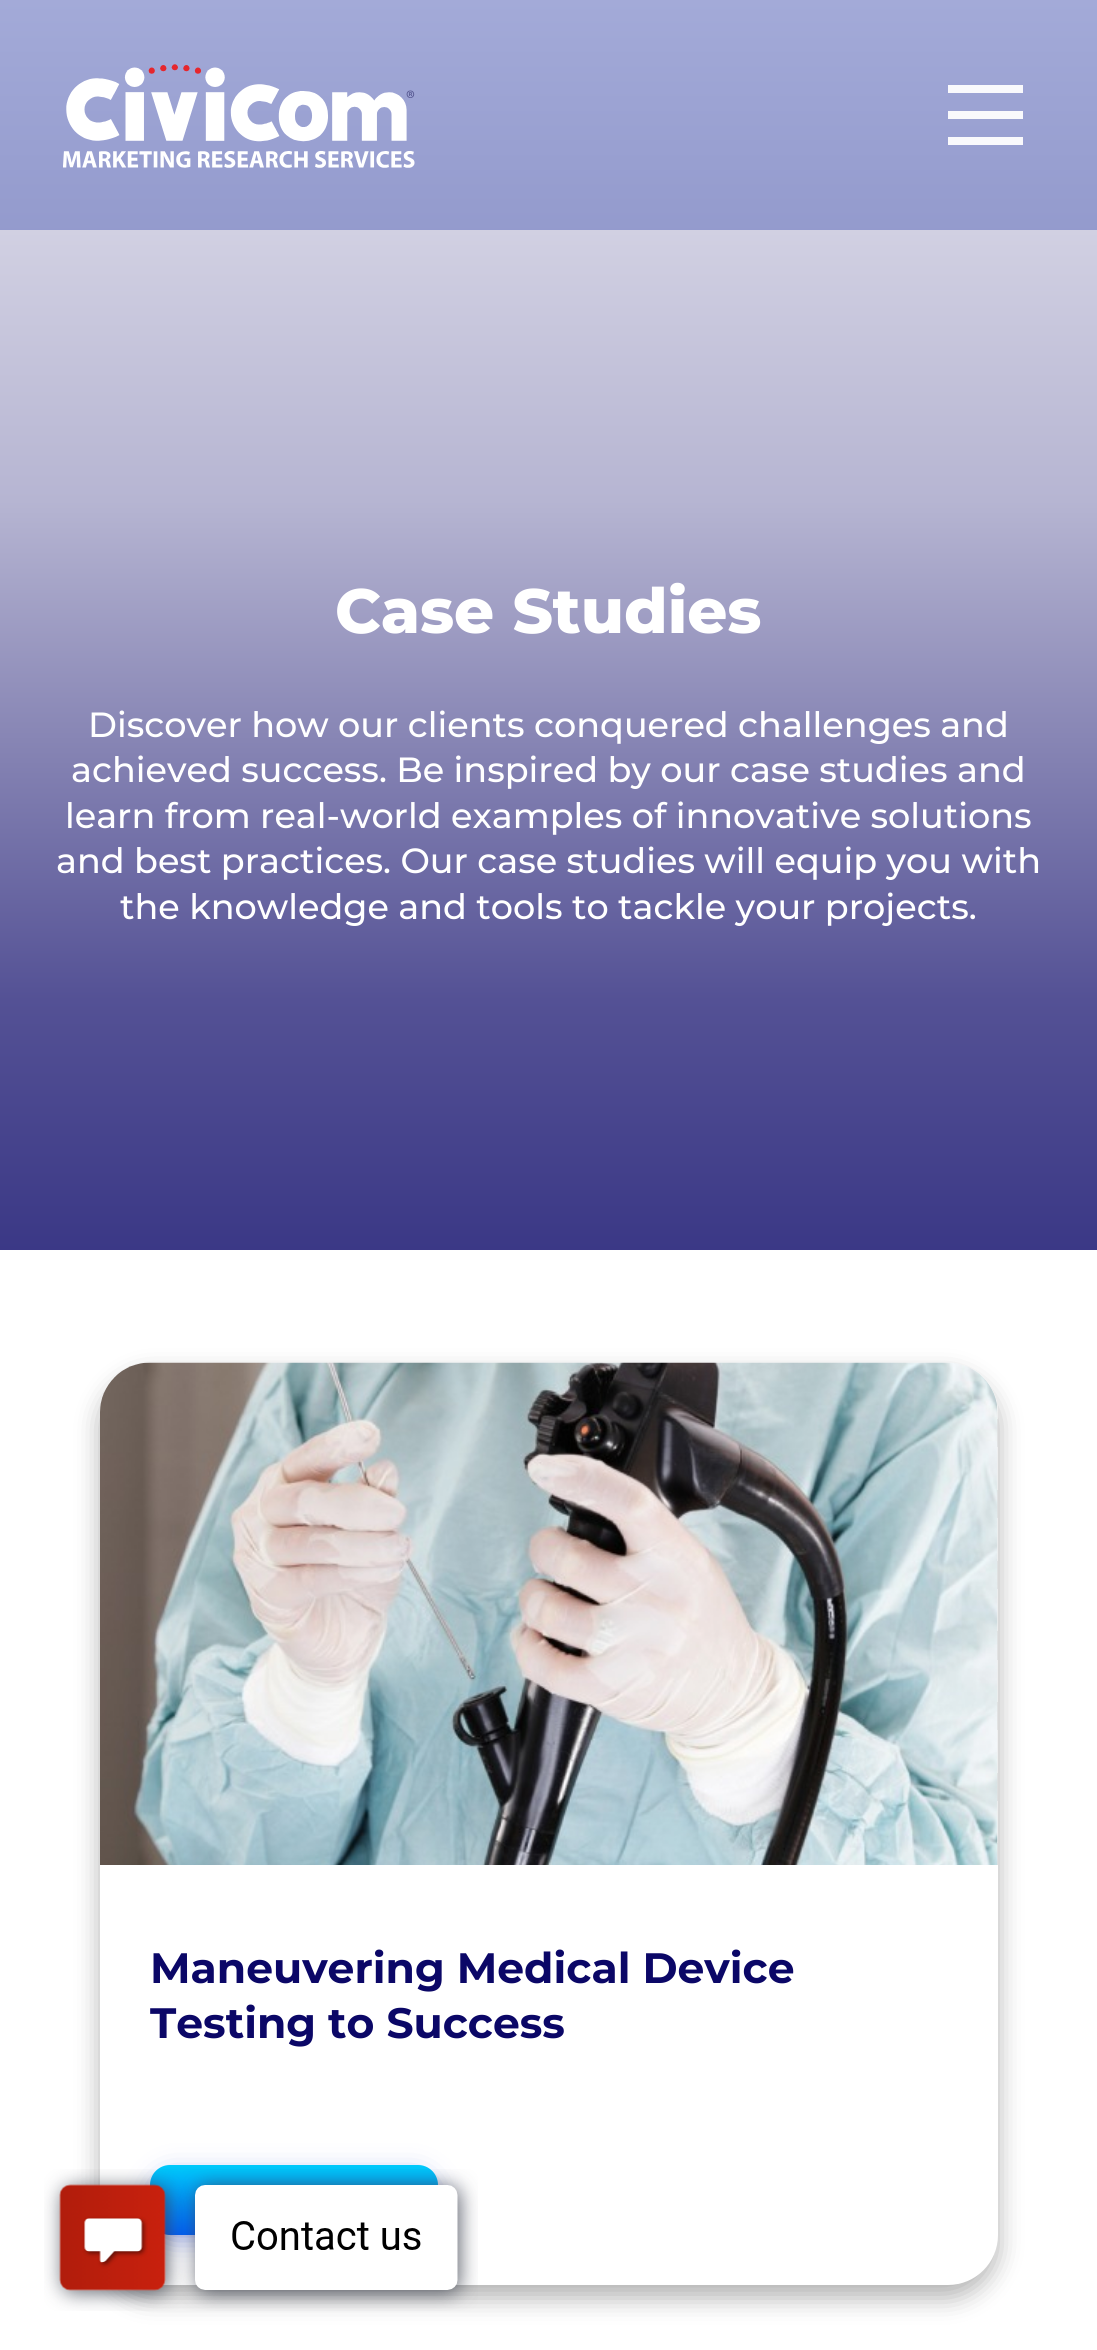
#include <cairo.h>
#include <math.h>
#include <stddef.h>

typedef struct { const char *family; double size; int italic, bold; unsigned color; } style_t;
static cairo_t *ctx;

static void ink(unsigned color) {
    cairo_set_source_rgb(ctx, (color >> 16) / 255.0, (color >> 8 & 255) / 255.0, (color & 255) / 255.0);
}

static void write(double x, double y, const char *s, const style_t *st) {
    cairo_select_font_face(ctx, st->family, st->italic ? CAIRO_FONT_SLANT_ITALIC : CAIRO_FONT_SLANT_NORMAL,
        st->bold ? CAIRO_FONT_WEIGHT_BOLD : CAIRO_FONT_WEIGHT_NORMAL);
    cairo_set_font_size(ctx, st->size);
    ink(st->color);
    cairo_move_to(ctx, x, y);
    cairo_show_text(ctx, s);
}

static void block(double x, double y, double w, double h, unsigned color) {
    ink(color);
    cairo_rectangle(ctx, x, y, w, h);
    cairo_fill(ctx);
}

static void round_path(double x, double y, double w, double h, double r) {
    cairo_new_sub_path(ctx);
    cairo_arc(ctx, x + w - r, y + h - r, r, 0, M_PI / 2);
    cairo_arc(ctx, x + r, y + h - r, r, M_PI / 2, M_PI);
    cairo_arc(ctx, x + r, y + r, r, M_PI, 1.5 * M_PI);
    cairo_arc(ctx, x + w - r, y + r, r, 1.5 * M_PI, 2 * M_PI);
    cairo_close_path(ctx);
}

static void blur_box(double x, double y, double w, double h, double r, double blur, double alpha) {
    cairo_push_group_with_content(ctx, CAIRO_CONTENT_ALPHA);
    cairo_set_operator(ctx, CAIRO_OPERATOR_SOURCE);
    for (int i = 15; i >= -15 && fmin(w, h) + blur * i / 3 > 0; i -= 2) {
        double e = blur * i / 6;
        cairo_set_source_rgba(ctx, 0, 0, 0, alpha * erfc((i - 1) / 8.5) / 2);
        round_path(x - e, y - e, w + 2 * e, h + 2 * e, fmax(0, fmin(r + e + blur * .6, fmin(w, h) / 2 + e)));
        cairo_fill(ctx);
    }
    cairo_pattern_t *soft = cairo_pop_group(ctx);
    cairo_mask(ctx, soft);
    cairo_pattern_destroy(soft);
}

static void paste(const char *path, double x, double y, double w, double h) {
    cairo_surface_t *image = cairo_image_surface_create_from_png(path);
    cairo_save(ctx);
    cairo_set_source_surface(ctx, image, x, y);
    cairo_rectangle(ctx, x, y, w, h);
    cairo_fill(ctx);
    cairo_restore(ctx);
    cairo_surface_destroy(image);
}

static const style_t s1 = {"Montserrat ExtraBold", 62.5, 0, 0, 0xffffff};
static const style_t s2 = {"Montserrat Medium", 35, 0, 0, 0xffffff};
static const style_t s3 = {"Montserrat", 42.5, 0, 1, 0x0b0767};

int main(void) {
    cairo_surface_t *surface = cairo_image_surface_create(CAIRO_FORMAT_RGB24, 1097, 2350);
    ctx = cairo_create(surface);
    cairo_font_options_t *options = cairo_font_options_create();
    cairo_font_options_set_hint_metrics(options, CAIRO_HINT_METRICS_OFF);
    cairo_font_options_set_hint_style(options, CAIRO_HINT_STYLE_NONE);
    cairo_set_font_options(ctx, options);
    cairo_set_miter_limit(ctx, 4);
    cairo_pattern_t *gradient;
    ink(0xffffff);
    cairo_paint(ctx);
    gradient = cairo_pattern_create_linear(549, 1250, 549, 0);
    cairo_pattern_add_color_stop_rgba(gradient, 0, 0.169, 0.188, 0.553, 1);
    cairo_pattern_add_color_stop_rgba(gradient, 0.2, 0.235, 0.255, 0.592, 1);
    cairo_pattern_add_color_stop_rgba(gradient, 0.4, 0.369, 0.392, 0.675, 1);
    cairo_pattern_add_color_stop_rgba(gradient, 0.6, 0.506, 0.529, 0.761, 1);
    cairo_pattern_add_color_stop_rgba(gradient, 0.8, 0.573, 0.6, 0.8, 1);
    cairo_pattern_add_color_stop_rgba(gradient, 1, 0.639, 0.667, 0.847, 1);
    cairo_set_source(ctx, gradient);
    cairo_pattern_destroy(gradient);
    cairo_rectangle(ctx, 0, 0, 1097, 230);
    cairo_fill(ctx);
    paste("pic1.png", 63, 64, 352, 104);
    block(948, 85, 75, 8, 0xf9f9fc);
    block(948, 111, 75, 8, 0xf9f9fc);
    block(948, 137, 75, 8, 0xf9f9fc);
    gradient = cairo_pattern_create_linear(549, 1250, 549, 0);
    cairo_pattern_add_color_stop_rgba(gradient, 0, 0.231, 0.22, 0.525, 1);
    cairo_pattern_add_color_stop_rgba(gradient, 0.2, 0.329, 0.318, 0.584, 1);
    cairo_pattern_add_color_stop_rgba(gradient, 0.4, 0.522, 0.514, 0.702, 1);
    cairo_pattern_add_color_stop_rgba(gradient, 0.6, 0.714, 0.71, 0.824, 1);
    cairo_pattern_add_color_stop_rgba(gradient, 0.8, 0.812, 0.808, 0.882, 1);
    cairo_pattern_add_color_stop_rgba(gradient, 1, 0.906, 0.906, 0.945, 1);
    cairo_set_source(ctx, gradient);
    cairo_pattern_destroy(gradient);
    cairo_rectangle(ctx, 0, 230, 1097, 1020);
    cairo_fill(ctx);
    write(335, 633, "Case Studies", &s1);
    write(88, 737, "Discover how our clients conquered challenges and", &s2);
    write(71, 782, "achieved success. Be inspired by our case studies and", &s2);
    write(65, 828, "learn from real-world examples of innovative solutions", &s2);
    write(56, 873, "and best practices. Our case studies will equip you with", &s2);
    write(120, 919, "the knowledge and tools to tackle your projects.", &s2);
    ink(0x000000);
    blur_box(100, 1375, 898, 923, 50, 12.5, 0.3);
    ink(0xffffff);
    round_path(100, 1363, 898, 922, 50);
    cairo_fill(ctx);
    gradient = cairo_pattern_create_linear(199, 1964, 906, 1257);
    cairo_pattern_add_color_stop_rgba(gradient, 0, 0.933, 0.933, 0.933, 1);
    cairo_pattern_add_color_stop_rgba(gradient, 0.03, 0.933, 0.933, 0.933, 1);
    cairo_pattern_add_color_stop_rgba(gradient, 0.03, 0.867, 0.867, 0.867, 1);
    cairo_pattern_add_color_stop_rgba(gradient, 0.05, 0.867, 0.867, 0.867, 1);
    cairo_pattern_add_color_stop_rgba(gradient, 0.05, 0.933, 0.933, 0.933, 1);
    cairo_pattern_add_color_stop_rgba(gradient, 0.07, 0.933, 0.933, 0.933, 1);
    cairo_pattern_add_color_stop_rgba(gradient, 0.07, 0.867, 0.867, 0.867, 1);
    cairo_pattern_add_color_stop_rgba(gradient, 0.1, 0.867, 0.867, 0.867, 1);
    cairo_pattern_add_color_stop_rgba(gradient, 0.1, 0.933, 0.933, 0.933, 1);
    cairo_pattern_add_color_stop_rgba(gradient, 0.12, 0.933, 0.933, 0.933, 1);
    cairo_pattern_add_color_stop_rgba(gradient, 0.12, 0.867, 0.867, 0.867, 1);
    cairo_pattern_add_color_stop_rgba(gradient, 0.15, 0.867, 0.867, 0.867, 1);
    cairo_pattern_add_color_stop_rgba(gradient, 0.15, 0.933, 0.933, 0.933, 1);
    cairo_pattern_add_color_stop_rgba(gradient, 0.18, 0.933, 0.933, 0.933, 1);
    cairo_pattern_add_color_stop_rgba(gradient, 0.18, 0.867, 0.867, 0.867, 1);
    cairo_pattern_add_color_stop_rgba(gradient, 0.2, 0.867, 0.867, 0.867, 1);
    cairo_pattern_add_color_stop_rgba(gradient, 0.2, 0.933, 0.933, 0.933, 1);
    cairo_pattern_add_color_stop_rgba(gradient, 0.23, 0.933, 0.933, 0.933, 1);
    cairo_pattern_add_color_stop_rgba(gradient, 0.23, 0.867, 0.867, 0.867, 1);
    cairo_pattern_add_color_stop_rgba(gradient, 0.25, 0.867, 0.867, 0.867, 1);
    cairo_pattern_add_color_stop_rgba(gradient, 0.25, 0.933, 0.933, 0.933, 1);
    cairo_pattern_add_color_stop_rgba(gradient, 0.27, 0.933, 0.933, 0.933, 1);
    cairo_pattern_add_color_stop_rgba(gradient, 0.27, 0.867, 0.867, 0.867, 1);
    cairo_pattern_add_color_stop_rgba(gradient, 0.3, 0.867, 0.867, 0.867, 1);
    cairo_pattern_add_color_stop_rgba(gradient, 0.3, 0.933, 0.933, 0.933, 1);
    cairo_pattern_add_color_stop_rgba(gradient, 0.33, 0.933, 0.933, 0.933, 1);
    cairo_pattern_add_color_stop_rgba(gradient, 0.33, 0.867, 0.867, 0.867, 1);
    cairo_pattern_add_color_stop_rgba(gradient, 0.35, 0.867, 0.867, 0.867, 1);
    cairo_pattern_add_color_stop_rgba(gradient, 0.35, 0.933, 0.933, 0.933, 1);
    cairo_pattern_add_color_stop_rgba(gradient, 0.38, 0.933, 0.933, 0.933, 1);
    cairo_pattern_add_color_stop_rgba(gradient, 0.38, 0.867, 0.867, 0.867, 1);
    cairo_pattern_add_color_stop_rgba(gradient, 0.4, 0.867, 0.867, 0.867, 1);
    cairo_pattern_add_color_stop_rgba(gradient, 0.4, 0.933, 0.933, 0.933, 1);
    cairo_pattern_add_color_stop_rgba(gradient, 0.42, 0.933, 0.933, 0.933, 1);
    cairo_pattern_add_color_stop_rgba(gradient, 0.42, 0.867, 0.867, 0.867, 1);
    cairo_pattern_add_color_stop_rgba(gradient, 0.45, 0.867, 0.867, 0.867, 1);
    cairo_pattern_add_color_stop_rgba(gradient, 0.45, 0.933, 0.933, 0.933, 1);
    cairo_pattern_add_color_stop_rgba(gradient, 0.48, 0.933, 0.933, 0.933, 1);
    cairo_pattern_add_color_stop_rgba(gradient, 0.48, 0.867, 0.867, 0.867, 1);
    cairo_pattern_add_color_stop_rgba(gradient, 0.5, 0.867, 0.867, 0.867, 1);
    cairo_pattern_add_color_stop_rgba(gradient, 0.5, 0.933, 0.933, 0.933, 1);
    cairo_pattern_add_color_stop_rgba(gradient, 0.53, 0.933, 0.933, 0.933, 1);
    cairo_pattern_add_color_stop_rgba(gradient, 0.53, 0.867, 0.867, 0.867, 1);
    cairo_pattern_add_color_stop_rgba(gradient, 0.55, 0.867, 0.867, 0.867, 1);
    cairo_pattern_add_color_stop_rgba(gradient, 0.55, 0.933, 0.933, 0.933, 1);
    cairo_pattern_add_color_stop_rgba(gradient, 0.58, 0.933, 0.933, 0.933, 1);
    cairo_pattern_add_color_stop_rgba(gradient, 0.58, 0.867, 0.867, 0.867, 1);
    cairo_pattern_add_color_stop_rgba(gradient, 0.6, 0.867, 0.867, 0.867, 1);
    cairo_pattern_add_color_stop_rgba(gradient, 0.6, 0.933, 0.933, 0.933, 1);
    cairo_pattern_add_color_stop_rgba(gradient, 0.62, 0.933, 0.933, 0.933, 1);
    cairo_pattern_add_color_stop_rgba(gradient, 0.62, 0.867, 0.867, 0.867, 1);
    cairo_pattern_add_color_stop_rgba(gradient, 0.65, 0.867, 0.867, 0.867, 1);
    cairo_pattern_add_color_stop_rgba(gradient, 0.65, 0.933, 0.933, 0.933, 1);
    cairo_pattern_add_color_stop_rgba(gradient, 0.68, 0.933, 0.933, 0.933, 1);
    cairo_pattern_add_color_stop_rgba(gradient, 0.68, 0.867, 0.867, 0.867, 1);
    cairo_pattern_add_color_stop_rgba(gradient, 0.7, 0.867, 0.867, 0.867, 1);
    cairo_pattern_add_color_stop_rgba(gradient, 0.7, 0.933, 0.933, 0.933, 1);
    cairo_pattern_add_color_stop_rgba(gradient, 0.73, 0.933, 0.933, 0.933, 1);
    cairo_pattern_add_color_stop_rgba(gradient, 0.73, 0.867, 0.867, 0.867, 1);
    cairo_pattern_add_color_stop_rgba(gradient, 0.75, 0.867, 0.867, 0.867, 1);
    cairo_pattern_add_color_stop_rgba(gradient, 0.75, 0.933, 0.933, 0.933, 1);
    cairo_pattern_add_color_stop_rgba(gradient, 0.78, 0.933, 0.933, 0.933, 1);
    cairo_pattern_add_color_stop_rgba(gradient, 0.78, 0.867, 0.867, 0.867, 1);
    cairo_pattern_add_color_stop_rgba(gradient, 0.8, 0.867, 0.867, 0.867, 1);
    cairo_pattern_add_color_stop_rgba(gradient, 0.8, 0.933, 0.933, 0.933, 1);
    cairo_pattern_add_color_stop_rgba(gradient, 0.83, 0.933, 0.933, 0.933, 1);
    cairo_pattern_add_color_stop_rgba(gradient, 0.83, 0.867, 0.867, 0.867, 1);
    cairo_pattern_add_color_stop_rgba(gradient, 0.85, 0.867, 0.867, 0.867, 1);
    cairo_pattern_add_color_stop_rgba(gradient, 0.85, 0.933, 0.933, 0.933, 1);
    cairo_pattern_add_color_stop_rgba(gradient, 0.88, 0.933, 0.933, 0.933, 1);
    cairo_pattern_add_color_stop_rgba(gradient, 0.88, 0.867, 0.867, 0.867, 1);
    cairo_pattern_add_color_stop_rgba(gradient, 0.9, 0.867, 0.867, 0.867, 1);
    cairo_pattern_add_color_stop_rgba(gradient, 0.9, 0.933, 0.933, 0.933, 1);
    cairo_pattern_add_color_stop_rgba(gradient, 0.93, 0.933, 0.933, 0.933, 1);
    cairo_pattern_add_color_stop_rgba(gradient, 0.93, 0.867, 0.867, 0.867, 1);
    cairo_pattern_add_color_stop_rgba(gradient, 0.95, 0.867, 0.867, 0.867, 1);
    cairo_pattern_add_color_stop_rgba(gradient, 0.95, 0.933, 0.933, 0.933, 1);
    cairo_pattern_add_color_stop_rgba(gradient, 0.98, 0.933, 0.933, 0.933, 1);
    cairo_pattern_add_color_stop_rgba(gradient, 0.98, 0.867, 0.867, 0.867, 1);
    cairo_pattern_add_color_stop_rgba(gradient, 1, 0.867, 0.867, 0.867, 1);
    cairo_set_source(ctx, gradient);
    cairo_pattern_destroy(gradient);
    cairo_new_path(ctx);
    cairo_move_to(ctx, 150, 1363);
    cairo_line_to(ctx, 948, 1363);
    cairo_curve_to(ctx, 975.5, 1363, 998, 1385.5, 998, 1413);
    cairo_line_to(ctx, 998, 1865);
    cairo_line_to(ctx, 100, 1865);
    cairo_line_to(ctx, 100, 1413);
    cairo_curve_to(ctx, 100, 1385.5, 122.5, 1363, 150, 1363);
    cairo_close_path(ctx);
    cairo_fill(ctx);
    paste("pic2.png", 100, 1362, 898, 503);
    write(150, 1983, "Maneuvering Medical Device", &s3);
    write(150, 2038, "Testing to Success", &s3);
    ink(0x002ad4);
    blur_box(158, 2180, 272, 55, 13, 15, 0.5);
    gradient = cairo_pattern_create_linear(294, 2165, 294, 2235);
    cairo_pattern_add_color_stop_rgba(gradient, 0, 0, 0.792, 0.98, 1);
    cairo_pattern_add_color_stop_rgba(gradient, 1, 0, 0.38, 0.98, 1);
    cairo_set_source(ctx, gradient);
    cairo_pattern_destroy(gradient);
    round_path(150, 2165, 288, 70, 20);
    cairo_fill(ctx);
    paste("pic3.png", 44, 2169, 434, 142);
    cairo_surface_write_to_png(surface, "screenshot.png");
    cairo_font_options_destroy(options);
    cairo_destroy(ctx);
    cairo_surface_destroy(surface);
    return 0;
}
